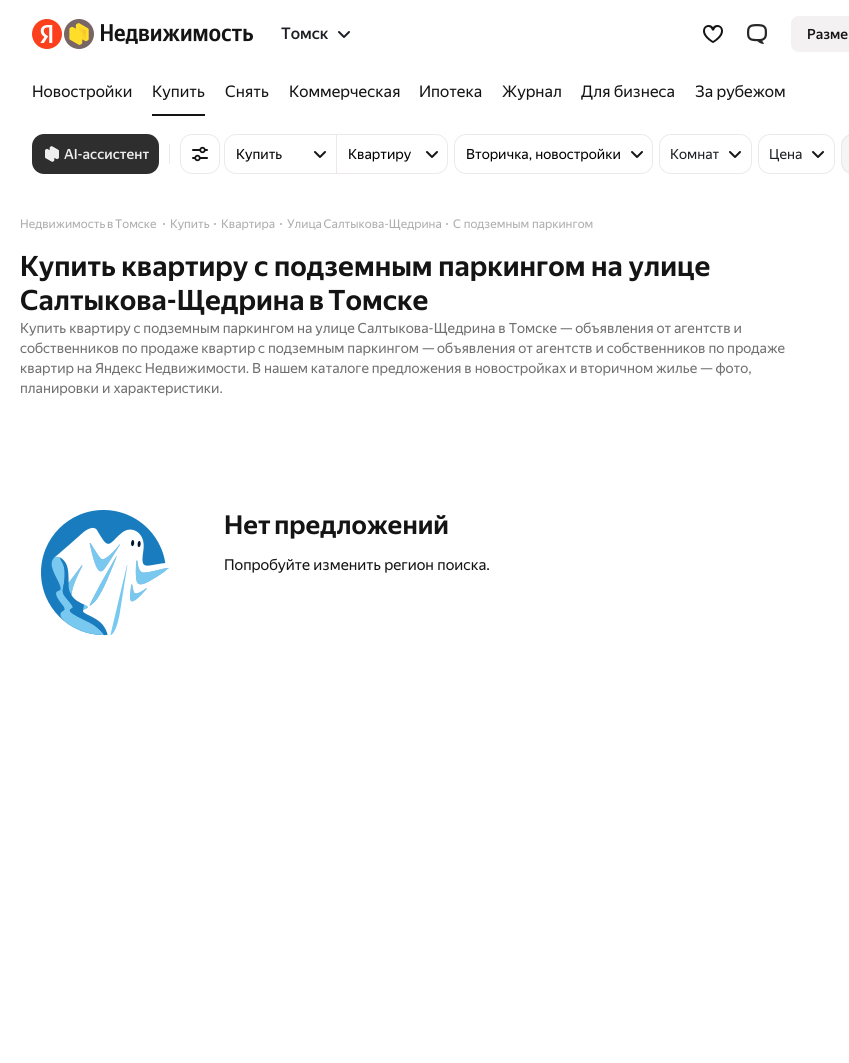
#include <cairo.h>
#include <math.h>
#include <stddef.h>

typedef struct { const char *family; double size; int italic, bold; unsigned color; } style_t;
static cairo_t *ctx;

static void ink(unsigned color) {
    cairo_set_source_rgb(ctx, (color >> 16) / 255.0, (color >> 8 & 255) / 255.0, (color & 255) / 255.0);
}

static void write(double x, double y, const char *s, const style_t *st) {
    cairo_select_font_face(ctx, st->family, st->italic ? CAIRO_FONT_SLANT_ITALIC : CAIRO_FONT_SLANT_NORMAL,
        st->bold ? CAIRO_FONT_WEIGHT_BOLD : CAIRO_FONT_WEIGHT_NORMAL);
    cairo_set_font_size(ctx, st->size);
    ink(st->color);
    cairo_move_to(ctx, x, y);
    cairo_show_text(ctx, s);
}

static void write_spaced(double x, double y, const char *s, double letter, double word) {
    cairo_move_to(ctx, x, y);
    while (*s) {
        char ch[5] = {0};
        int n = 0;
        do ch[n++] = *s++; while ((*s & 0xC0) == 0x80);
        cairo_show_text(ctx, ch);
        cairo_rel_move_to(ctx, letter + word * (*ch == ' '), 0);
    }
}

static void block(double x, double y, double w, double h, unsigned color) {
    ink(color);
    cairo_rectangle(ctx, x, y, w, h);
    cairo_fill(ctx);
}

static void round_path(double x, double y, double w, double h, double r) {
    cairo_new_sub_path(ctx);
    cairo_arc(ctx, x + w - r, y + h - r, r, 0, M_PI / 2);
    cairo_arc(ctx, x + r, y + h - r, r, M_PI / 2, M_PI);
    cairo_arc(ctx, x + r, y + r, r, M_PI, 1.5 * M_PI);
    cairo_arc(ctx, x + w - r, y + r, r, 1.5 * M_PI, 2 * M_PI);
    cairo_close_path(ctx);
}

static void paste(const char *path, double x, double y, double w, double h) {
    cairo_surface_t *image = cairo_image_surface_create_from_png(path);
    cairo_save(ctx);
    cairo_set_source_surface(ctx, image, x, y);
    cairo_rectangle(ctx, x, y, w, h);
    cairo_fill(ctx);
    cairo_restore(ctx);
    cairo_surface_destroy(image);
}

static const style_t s1 = {"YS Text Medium", 16, 0, 0, 0x1d1f26};
static const style_t s2 = {"YS Text Medium", 14, 0, 0, 0x141414};
static const style_t s3 = {"YS Text", 16, 0, 0, 0x141414};
static const style_t s4 = {"YS Text Medium", 14, 0, 0, 0xeeeeee};
static const style_t s5 = {"YS Text", 14, 0, 0, 0x000000};
static const style_t s6 = {"YS Text", 14, 0, 0, 0x1d1f26};
static const style_t s7 = {"YS Text", 12, 0, 0, 0xadadad};
static const style_t s8 = {"YS Text", 14, 0, 0, 0x707070};
static const style_t s9 = {"YS Text", 15, 0, 0, 0x141414};

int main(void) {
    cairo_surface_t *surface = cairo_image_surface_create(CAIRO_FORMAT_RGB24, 849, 1063);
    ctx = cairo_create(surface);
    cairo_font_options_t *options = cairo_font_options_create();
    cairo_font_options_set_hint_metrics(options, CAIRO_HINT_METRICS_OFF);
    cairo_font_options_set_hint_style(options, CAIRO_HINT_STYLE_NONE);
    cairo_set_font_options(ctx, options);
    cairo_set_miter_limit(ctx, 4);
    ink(0xffffff);
    cairo_paint(ctx);
    paste("pic1.png", 32, 19, 30, 30);
    paste("pic2.png", 64, 19, 30, 30);
    paste("pic3.png", 101, 24, 152, 20);
    write(281, 39, "Томск", &s1);
    paste("pic4.png", 338, 31, 12, 7);
    paste("pic5.png", 703, 25, 20, 18);
    paste("pic6.png", 747, 24, 20, 20);
    ink(0xf3f1f1);
    round_path(791, 16, 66, 36, 8);
    cairo_fill(ctx);
    write(807, 39, "Разме", &s2);
    write(32, 97, "Новостройки", &s3);
    write(152, 97, "Купить", &s3);
    block(152, 114, 53, 2, 0x141414);
    write(225, 97, "Снять", &s3);
    write(289, 97, "Коммерческая", &s3);
    write(419, 97, "Ипотека", &s3);
    write(502, 97, "Журнал", &s3);
    write(581, 97, "Для бизнеса", &s3);
    write(695, 97, "За рубежом", &s3);
    ink(0x2e2e2e);
    round_path(32, 134, 127, 40, 12);
    cairo_fill(ctx);
    paste("pic7.png", 45, 146, 14, 16);
    write(64, 159, "AI-ассистент", &s4);
    block(169, 144, 1, 20, 0xede9e9);
    round_path(180.5, 134.5, 39, 39, 11.5);
    cairo_set_line_width(ctx, 1);
    cairo_stroke(ctx);
    paste("pic8.png", 192, 146, 16, 16);
    cairo_new_path(ctx);
    cairo_move_to(ctx, 236, 134);
    cairo_line_to(ctx, 336, 134);
    cairo_line_to(ctx, 336, 174);
    cairo_line_to(ctx, 236, 174);
    cairo_curve_to(ctx, 229.5, 174, 224, 168.5, 224, 162);
    cairo_line_to(ctx, 224, 146);
    cairo_curve_to(ctx, 224, 139.5, 229.5, 134, 236, 134);
    cairo_close_path(ctx);
    cairo_fill(ctx);
    ink(0xffffff);
    cairo_new_path(ctx);
    cairo_move_to(ctx, 236, 135);
    cairo_line_to(ctx, 336, 135);
    cairo_line_to(ctx, 336, 173);
    cairo_line_to(ctx, 236, 173);
    cairo_curve_to(ctx, 230, 173, 225, 168, 225, 162);
    cairo_line_to(ctx, 225, 146);
    cairo_curve_to(ctx, 225, 140, 230, 135, 236, 135);
    cairo_close_path(ctx);
    cairo_fill(ctx);
    write(236, 159, "Купить", &s5);
    paste("pic9.png", 314, 151, 12, 7);
    ink(0xede9e9);
    cairo_new_path(ctx);
    cairo_move_to(ctx, 336, 134);
    cairo_line_to(ctx, 436, 134);
    cairo_curve_to(ctx, 442.5, 134, 448, 139.5, 448, 146);
    cairo_line_to(ctx, 448, 162);
    cairo_curve_to(ctx, 448, 168.5, 442.5, 174, 436, 174);
    cairo_line_to(ctx, 336, 174);
    cairo_close_path(ctx);
    cairo_fill(ctx);
    ink(0xffffff);
    cairo_new_path(ctx);
    cairo_move_to(ctx, 337, 135);
    cairo_line_to(ctx, 436, 135);
    cairo_curve_to(ctx, 442, 135, 447, 140, 447, 146);
    cairo_line_to(ctx, 447, 162);
    cairo_curve_to(ctx, 447, 168, 442, 173, 436, 173);
    cairo_line_to(ctx, 337, 173);
    cairo_close_path(ctx);
    cairo_fill(ctx);
    write(348, 159, "Квартиру", &s5);
    paste("pic9.png", 426, 151, 12, 7);
    ink(0xede9e9);
    round_path(454, 134, 199, 40, 12);
    cairo_fill(ctx);
    ink(0xffffff);
    round_path(455, 135, 197, 38, 11);
    cairo_fill(ctx);
    write(466, 159, "Вторичка, новостройки", &s5);
    paste("pic9.png", 631, 151, 12, 7);
    round_path(659.5, 134.5, 92, 39, 11.5);
    ink(0xede9e9);
    cairo_stroke(ctx);
    write(670, 159, "Комнат", &s6);
    paste("pic9.png", 729, 151, 12, 7);
    round_path(758.5, 134.5, 76, 39, 11.5);
    ink(0xede9e9);
    cairo_stroke(ctx);
    write(769, 159, "Цена", &s6);
    paste("pic9.png", 812, 151, 12, 7);
    ink(0xf5f5f5);
    cairo_new_path(ctx);
    cairo_move_to(ctx, 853, 134);
    cairo_line_to(ctx, 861, 134);
    cairo_line_to(ctx, 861, 174);
    cairo_line_to(ctx, 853, 174);
    cairo_curve_to(ctx, 846.5, 174, 841, 168.5, 841, 162);
    cairo_line_to(ctx, 841, 146);
    cairo_curve_to(ctx, 841, 139.5, 846.5, 134, 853, 134);
    cairo_close_path(ctx);
    cairo_fill(ctx);
    ink(0xede9e9);
    cairo_set_fill_rule(ctx, CAIRO_FILL_RULE_EVEN_ODD);
    cairo_new_path(ctx);
    cairo_move_to(ctx, 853, 134);
    cairo_line_to(ctx, 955, 134);
    cairo_line_to(ctx, 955, 174);
    cairo_line_to(ctx, 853, 174);
    cairo_curve_to(ctx, 846, 174, 841, 169, 841, 162);
    cairo_line_to(ctx, 841, 146);
    cairo_curve_to(ctx, 841, 139, 846, 134, 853, 134);
    cairo_close_path(ctx);
    cairo_move_to(ctx, 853, 135);
    cairo_line_to(ctx, 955, 135);
    cairo_line_to(ctx, 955, 173);
    cairo_line_to(ctx, 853, 173);
    cairo_curve_to(ctx, 847, 173, 842, 168, 842, 162);
    cairo_line_to(ctx, 842, 146);
    cairo_curve_to(ctx, 842, 140, 847, 135, 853, 135);
    cairo_close_path(ctx);
    cairo_fill(ctx);
    cairo_set_font_size(ctx, 12);
    ink(0xadadad);
    write_spaced(20, 228, "Недвижимость в Томске", 0, -1);
    cairo_new_path(ctx);
    cairo_arc(ctx, 164, 224, 1, 0, 2 * M_PI);
    cairo_fill(ctx);
    write(170, 228, "Купить", &s7);
    cairo_new_path(ctx);
    cairo_arc(ctx, 215, 224, 1, 0, 2 * M_PI);
    cairo_fill(ctx);
    write(221, 228, "Квартира", &s7);
    cairo_new_path(ctx);
    cairo_arc(ctx, 281, 224, 1, 0, 2 * M_PI);
    cairo_fill(ctx);
    write_spaced(287, 228, "Улица Салтыкова-Щедрина", 0, -1);
    cairo_new_path(ctx);
    cairo_arc(ctx, 447, 224, 1, 0, 2 * M_PI);
    cairo_fill(ctx);
    write(453, 228, "С подземным паркингом", &s7);
    cairo_select_font_face(ctx, "YS Text", CAIRO_FONT_SLANT_NORMAL, CAIRO_FONT_WEIGHT_BOLD);
    cairo_set_font_size(ctx, 28);
    ink(0x141414);
    write_spaced(20, 276, "Купить квартиру с подземным паркингом на улице", 0, -0.5);
    write_spaced(20, 310, "Салтыкова-Щедрина в Томске", 0, -2);
    cairo_select_font_face(ctx, "YS Text", CAIRO_FONT_SLANT_NORMAL, CAIRO_FONT_WEIGHT_NORMAL);
    cairo_set_font_size(ctx, 14);
    ink(0x707070);
    write_spaced(20, 333, "Купить квартиру с подземным паркингом на улице Салтыкова-Щедрина в Томске — объявления от агентств и", 0, -0.25);
    write_spaced(20, 353, "собственников по продаже квартир с подземным паркингом — объявления от агентств и собственников по продаже", 0, -0.25);
    write_spaced(20, 373, "квартир на Яндекс Недвижимости. В нашем каталоге предложения в новостройках и вторичном жилье — фото,", 0, -0.25);
    write(20, 393, "планировки и характеристики.", &s8);
    paste("pic10.png", 41, 510, 128, 126);
    cairo_select_font_face(ctx, "YS Text", CAIRO_FONT_SLANT_NORMAL, CAIRO_FONT_WEIGHT_BOLD);
    cairo_set_font_size(ctx, 26);
    ink(0x141414);
    write_spaced(224, 534, "Нет предложений", 0, -2);
    write(224, 570, "Попробуйте изменить регион поиска.", &s9);
    cairo_surface_write_to_png(surface, "screenshot.png");
    cairo_font_options_destroy(options);
    cairo_destroy(ctx);
    cairo_surface_destroy(surface);
    return 0;
}
